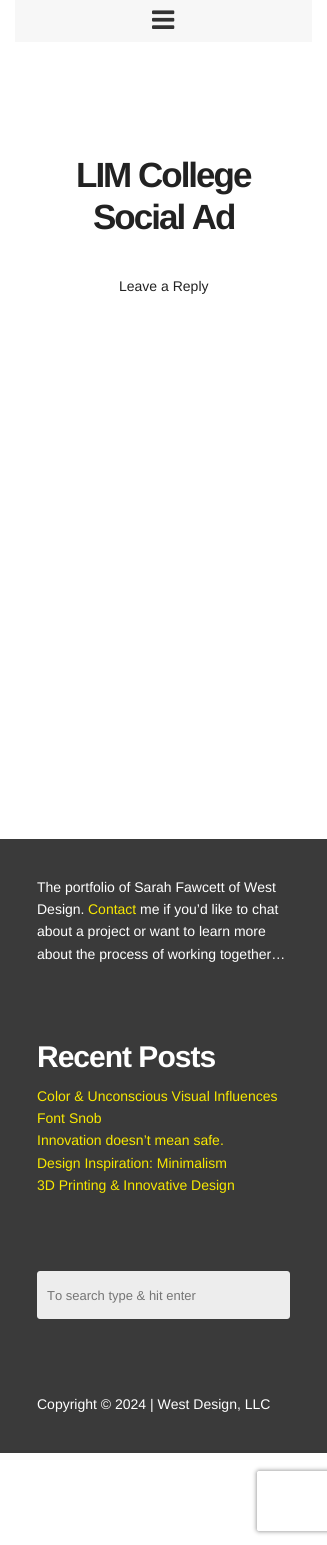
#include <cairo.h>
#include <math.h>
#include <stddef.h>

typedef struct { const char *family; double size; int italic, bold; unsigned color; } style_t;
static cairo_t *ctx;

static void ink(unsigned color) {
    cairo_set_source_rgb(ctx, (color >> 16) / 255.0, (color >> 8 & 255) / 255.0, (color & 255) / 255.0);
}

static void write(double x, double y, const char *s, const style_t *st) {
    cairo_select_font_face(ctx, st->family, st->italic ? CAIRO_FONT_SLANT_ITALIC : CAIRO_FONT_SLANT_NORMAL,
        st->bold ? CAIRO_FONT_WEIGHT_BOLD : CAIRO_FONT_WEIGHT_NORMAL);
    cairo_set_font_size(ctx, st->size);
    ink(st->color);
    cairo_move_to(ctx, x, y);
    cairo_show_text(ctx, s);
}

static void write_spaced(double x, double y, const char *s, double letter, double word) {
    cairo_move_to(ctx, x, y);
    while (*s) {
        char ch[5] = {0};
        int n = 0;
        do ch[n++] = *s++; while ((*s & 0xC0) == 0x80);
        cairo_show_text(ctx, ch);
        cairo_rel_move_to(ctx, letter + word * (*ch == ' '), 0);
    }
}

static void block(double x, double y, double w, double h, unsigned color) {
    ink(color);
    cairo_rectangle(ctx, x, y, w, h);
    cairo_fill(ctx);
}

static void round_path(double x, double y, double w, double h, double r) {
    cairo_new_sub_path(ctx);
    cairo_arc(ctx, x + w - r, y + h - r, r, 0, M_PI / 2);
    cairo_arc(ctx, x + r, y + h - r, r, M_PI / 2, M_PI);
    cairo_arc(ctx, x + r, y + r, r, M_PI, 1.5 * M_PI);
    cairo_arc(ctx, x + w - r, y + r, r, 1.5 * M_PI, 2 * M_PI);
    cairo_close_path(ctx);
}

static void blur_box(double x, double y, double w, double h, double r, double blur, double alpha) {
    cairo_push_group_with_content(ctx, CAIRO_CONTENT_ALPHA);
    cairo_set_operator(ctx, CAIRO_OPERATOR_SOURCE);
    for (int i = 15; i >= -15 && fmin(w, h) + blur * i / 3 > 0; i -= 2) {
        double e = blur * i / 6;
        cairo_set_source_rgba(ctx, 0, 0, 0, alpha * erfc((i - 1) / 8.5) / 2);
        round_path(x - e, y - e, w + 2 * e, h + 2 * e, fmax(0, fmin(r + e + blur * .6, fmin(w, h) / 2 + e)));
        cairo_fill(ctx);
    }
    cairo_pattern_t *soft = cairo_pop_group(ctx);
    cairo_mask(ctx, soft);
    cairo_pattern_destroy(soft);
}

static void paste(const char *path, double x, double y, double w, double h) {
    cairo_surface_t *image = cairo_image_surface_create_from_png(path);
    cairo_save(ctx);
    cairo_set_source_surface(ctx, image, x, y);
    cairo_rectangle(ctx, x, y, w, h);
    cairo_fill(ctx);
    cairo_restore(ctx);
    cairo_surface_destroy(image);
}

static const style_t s1 = {"Liberation Sans", 14, 0, 0, 0x222222};
static const style_t s2 = {"Liberation Sans", 14, 0, 0, 0xffffff};
static const style_t s3 = {"Liberation Sans", 14, 0, 0, 0xf8e800};
static const style_t s4 = {"Liberation Sans", 13, 0, 0, 0x757575};

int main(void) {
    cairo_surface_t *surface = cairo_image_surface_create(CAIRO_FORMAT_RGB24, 327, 1545);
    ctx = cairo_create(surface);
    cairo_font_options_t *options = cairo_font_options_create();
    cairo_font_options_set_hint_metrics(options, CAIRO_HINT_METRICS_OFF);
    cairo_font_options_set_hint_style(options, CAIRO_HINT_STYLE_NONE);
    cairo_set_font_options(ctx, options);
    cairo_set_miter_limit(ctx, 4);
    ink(0xffffff);
    cairo_paint(ctx);
    block(15, 0, 297, 42, 0xf7f7f7);
    paste("pic1.png", 152, 10, 23, 19);
    cairo_select_font_face(ctx, "Liberation Sans", CAIRO_FONT_SLANT_NORMAL, CAIRO_FONT_WEIGHT_BOLD);
    cairo_set_font_size(ctx, 35);
    ink(0x222222);
    write_spaced(76, 187, "LIM College", -2, 0);
    write_spaced(93, 229, "Social Ad", -2, 0);
    write(119, 291, "Leave a Reply", &s1);
    block(0, 839, 327, 614, 0x3a3a3a);
    write(37, 892, "The portfolio of Sarah Fawcett of West", &s2);
    write(37, 914, "Design.", &s2);
    write(88, 914, "Contact", &s3);
    write(140, 914, "me if you’d like to chat", &s2);
    write(37, 936, "about a project or want to learn more", &s2);
    write(37, 959, "about the process of working together…", &s2);
    cairo_select_font_face(ctx, "Liberation Sans", CAIRO_FONT_SLANT_NORMAL, CAIRO_FONT_WEIGHT_BOLD);
    cairo_set_font_size(ctx, 30);
    write_spaced(37, 1067, "Recent Posts", -1, 0);
    write(37, 1101, "Color & Unconscious Visual Influences", &s3);
    write(37, 1123, "Font Snob", &s3);
    write(37, 1145, "Innovation doesn’t mean safe.", &s3);
    write(37, 1168, "Design Inspiration: Minimalism", &s3);
    write(37, 1190, "3D Printing & Innovative Design", &s3);
    ink(0xededed);
    round_path(37, 1271, 253, 48, 3);
    cairo_fill(ctx);
    write(47, 1300, "To search type & hit enter", &s4);
    write(37, 1409, "Copyright © 2024 | West Design, LLC", &s2);
    cairo_save(ctx);
    cairo_set_fill_rule(ctx, CAIRO_FILL_RULE_EVEN_ODD);
    cairo_new_path(ctx);
    cairo_move_to(ctx, 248, 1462);
    cairo_line_to(ctx, 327, 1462);
    cairo_line_to(ctx, 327, 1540);
    cairo_line_to(ctx, 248, 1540);
    cairo_close_path(ctx);
    cairo_move_to(ctx, 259, 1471);
    cairo_line_to(ctx, 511, 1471);
    cairo_curve_to(ctx, 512, 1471, 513, 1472, 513, 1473);
    cairo_line_to(ctx, 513, 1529);
    cairo_curve_to(ctx, 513, 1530, 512, 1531, 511, 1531);
    cairo_line_to(ctx, 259, 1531);
    cairo_curve_to(ctx, 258, 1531, 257, 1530, 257, 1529);
    cairo_line_to(ctx, 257, 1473);
    cairo_curve_to(ctx, 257, 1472, 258, 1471, 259, 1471);
    cairo_close_path(ctx);
    cairo_clip(ctx);
    ink(0x808080);
    blur_box(257, 1471, 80, 60, 2, 2.5, 1);
    cairo_restore(ctx);
    cairo_surface_write_to_png(surface, "screenshot.png");
    cairo_font_options_destroy(options);
    cairo_destroy(ctx);
    cairo_surface_destroy(surface);
    return 0;
}
